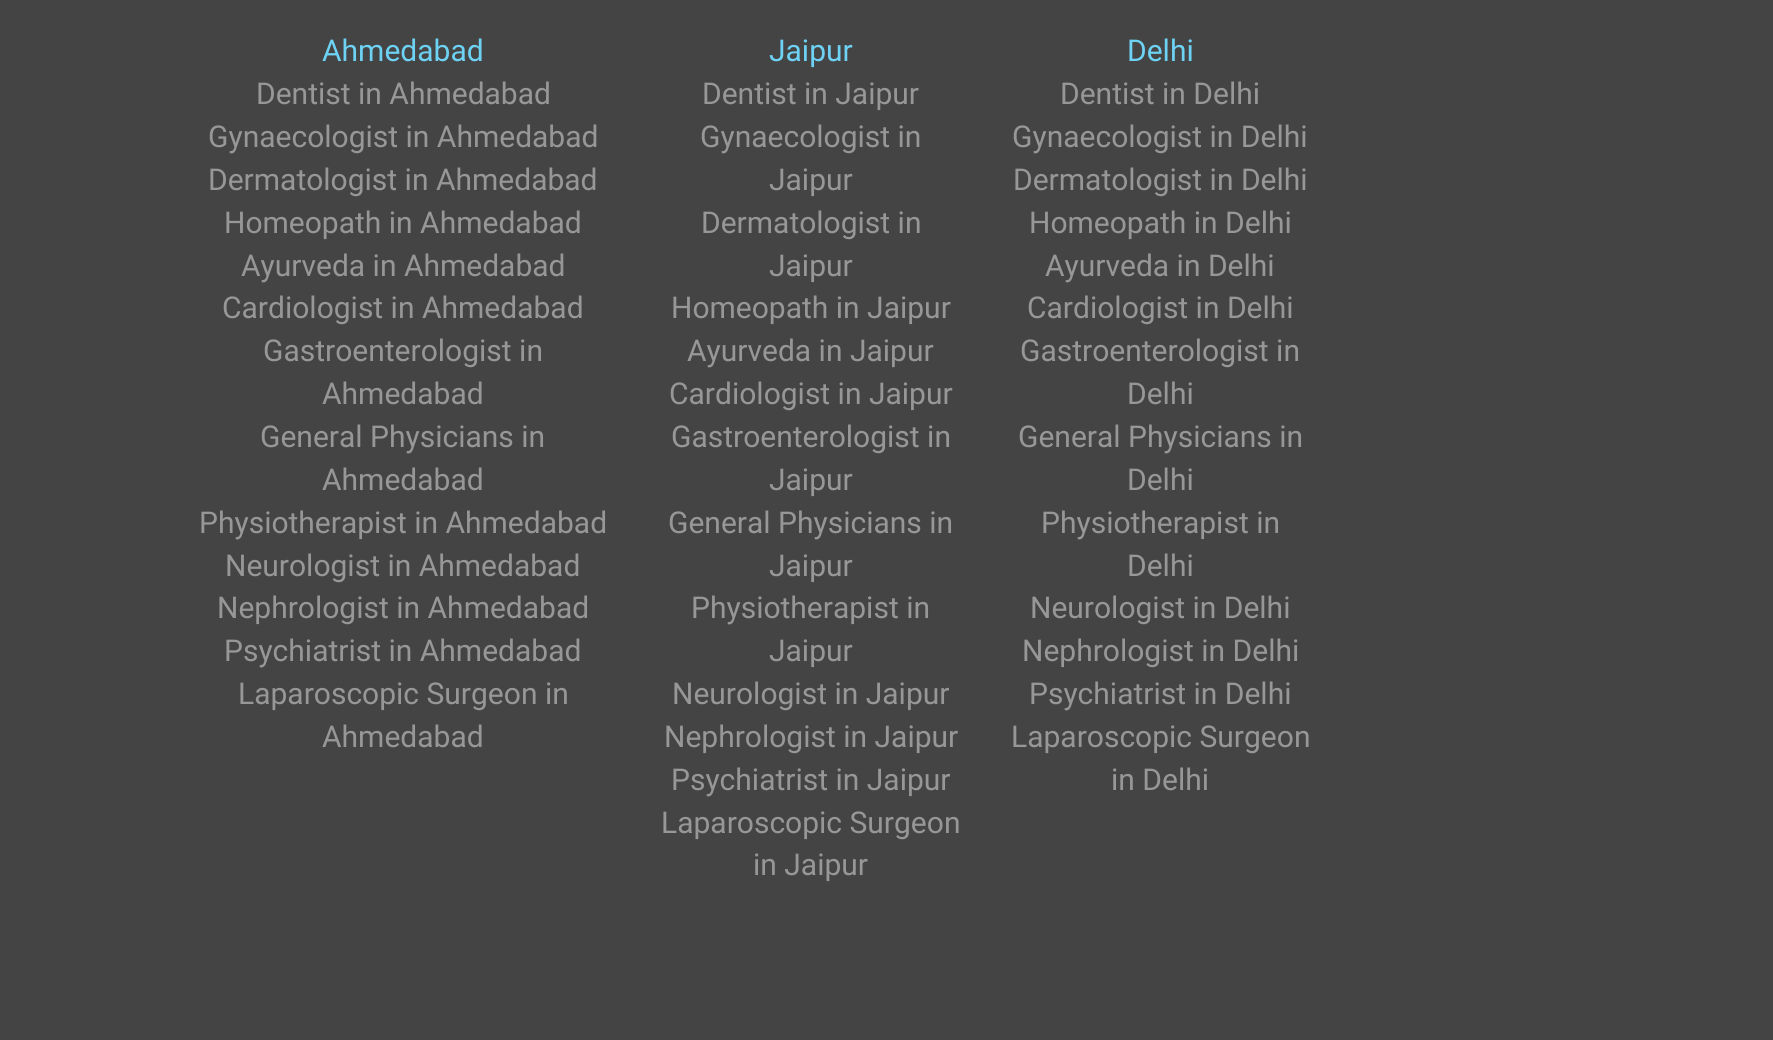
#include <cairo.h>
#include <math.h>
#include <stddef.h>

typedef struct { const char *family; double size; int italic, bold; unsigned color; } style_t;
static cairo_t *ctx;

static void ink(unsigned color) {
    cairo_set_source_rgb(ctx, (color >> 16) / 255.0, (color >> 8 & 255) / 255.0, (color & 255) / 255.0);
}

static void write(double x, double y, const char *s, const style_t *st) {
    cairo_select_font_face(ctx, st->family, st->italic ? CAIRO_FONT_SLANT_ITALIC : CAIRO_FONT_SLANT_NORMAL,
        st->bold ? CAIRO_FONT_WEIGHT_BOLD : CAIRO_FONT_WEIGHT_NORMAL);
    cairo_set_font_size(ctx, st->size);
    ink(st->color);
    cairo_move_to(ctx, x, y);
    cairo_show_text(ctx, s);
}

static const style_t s1 = {"Roboto", 30, 0, 0, 0x6dd2f4};
static const style_t s2 = {"Roboto", 30, 0, 0, 0x979797};

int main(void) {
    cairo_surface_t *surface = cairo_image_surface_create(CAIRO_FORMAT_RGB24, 1773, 1040);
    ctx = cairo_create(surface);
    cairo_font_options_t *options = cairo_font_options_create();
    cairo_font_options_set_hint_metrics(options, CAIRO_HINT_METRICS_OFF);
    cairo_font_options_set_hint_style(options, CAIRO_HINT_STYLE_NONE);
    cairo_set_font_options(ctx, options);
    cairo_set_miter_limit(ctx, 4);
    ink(0x444444);
    cairo_paint(ctx);
    write(322, 61, "Ahmedabad", &s1);
    write(256, 104, "Dentist in Ahmedabad", &s2);
    write(208, 147, "Gynaecologist in Ahmedabad", &s2);
    write(208, 190, "Dermatologist in Ahmedabad", &s2);
    write(224, 233, "Homeopath in Ahmedabad", &s2);
    write(241, 276, "Ayurveda in Ahmedabad", &s2);
    write(222, 318, "Cardiologist in Ahmedabad", &s2);
    write(263, 361, "Gastroenterologist in", &s2);
    write(322, 404, "Ahmedabad", &s2);
    write(260, 447, "General Physicians in", &s2);
    write(322, 490, "Ahmedabad", &s2);
    write(199, 533, "Physiotherapist in Ahmedabad", &s2);
    write(225, 576, "Neurologist in Ahmedabad", &s2);
    write(217, 618, "Nephrologist in Ahmedabad", &s2);
    write(224, 661, "Psychiatrist in Ahmedabad", &s2);
    write(238, 704, "Laparoscopic Surgeon in", &s2);
    write(322, 747, "Ahmedabad", &s2);
    write(769, 61, "Jaipur", &s1);
    write(702, 104, "Dentist in Jaipur", &s2);
    write(700, 147, "Gynaecologist in", &s2);
    write(769, 190, "Jaipur", &s2);
    write(701, 233, "Dermatologist in", &s2);
    write(769, 276, "Jaipur", &s2);
    write(671, 318, "Homeopath in Jaipur", &s2);
    write(687, 361, "Ayurveda in Jaipur", &s2);
    write(669, 404, "Cardiologist in Jaipur", &s2);
    write(671, 447, "Gastroenterologist in", &s2);
    write(769, 490, "Jaipur", &s2);
    write(668, 533, "General Physicians in", &s2);
    write(769, 576, "Jaipur", &s2);
    write(691, 618, "Physiotherapist in", &s2);
    write(769, 661, "Jaipur", &s2);
    write(672, 704, "Neurologist in Jaipur", &s2);
    write(664, 747, "Nephrologist in Jaipur", &s2);
    write(671, 790, "Psychiatrist in Jaipur", &s2);
    write(661, 833, "Laparoscopic Surgeon", &s2);
    write(753, 875, "in Jaipur", &s2);
    write(1127, 61, "Delhi", &s1);
    write(1060, 104, "Dentist in Delhi", &s2);
    write(1012, 147, "Gynaecologist in Delhi", &s2);
    write(1013, 190, "Dermatologist in Delhi", &s2);
    write(1029, 233, "Homeopath in Delhi", &s2);
    write(1045, 276, "Ayurveda in Delhi", &s2);
    write(1027, 318, "Cardiologist in Delhi", &s2);
    write(1020, 361, "Gastroenterologist in", &s2);
    write(1127, 404, "Delhi", &s2);
    write(1018, 447, "General Physicians in", &s2);
    write(1127, 490, "Delhi", &s2);
    write(1041, 533, "Physiotherapist in", &s2);
    write(1127, 576, "Delhi", &s2);
    write(1030, 618, "Neurologist in Delhi", &s2);
    write(1022, 661, "Nephrologist in Delhi", &s2);
    write(1029, 704, "Psychiatrist in Delhi", &s2);
    write(1011, 747, "Laparoscopic Surgeon", &s2);
    write(1111, 790, "in Delhi", &s2);
    cairo_surface_write_to_png(surface, "screenshot.png");
    cairo_font_options_destroy(options);
    cairo_destroy(ctx);
    cairo_surface_destroy(surface);
    return 0;
}
